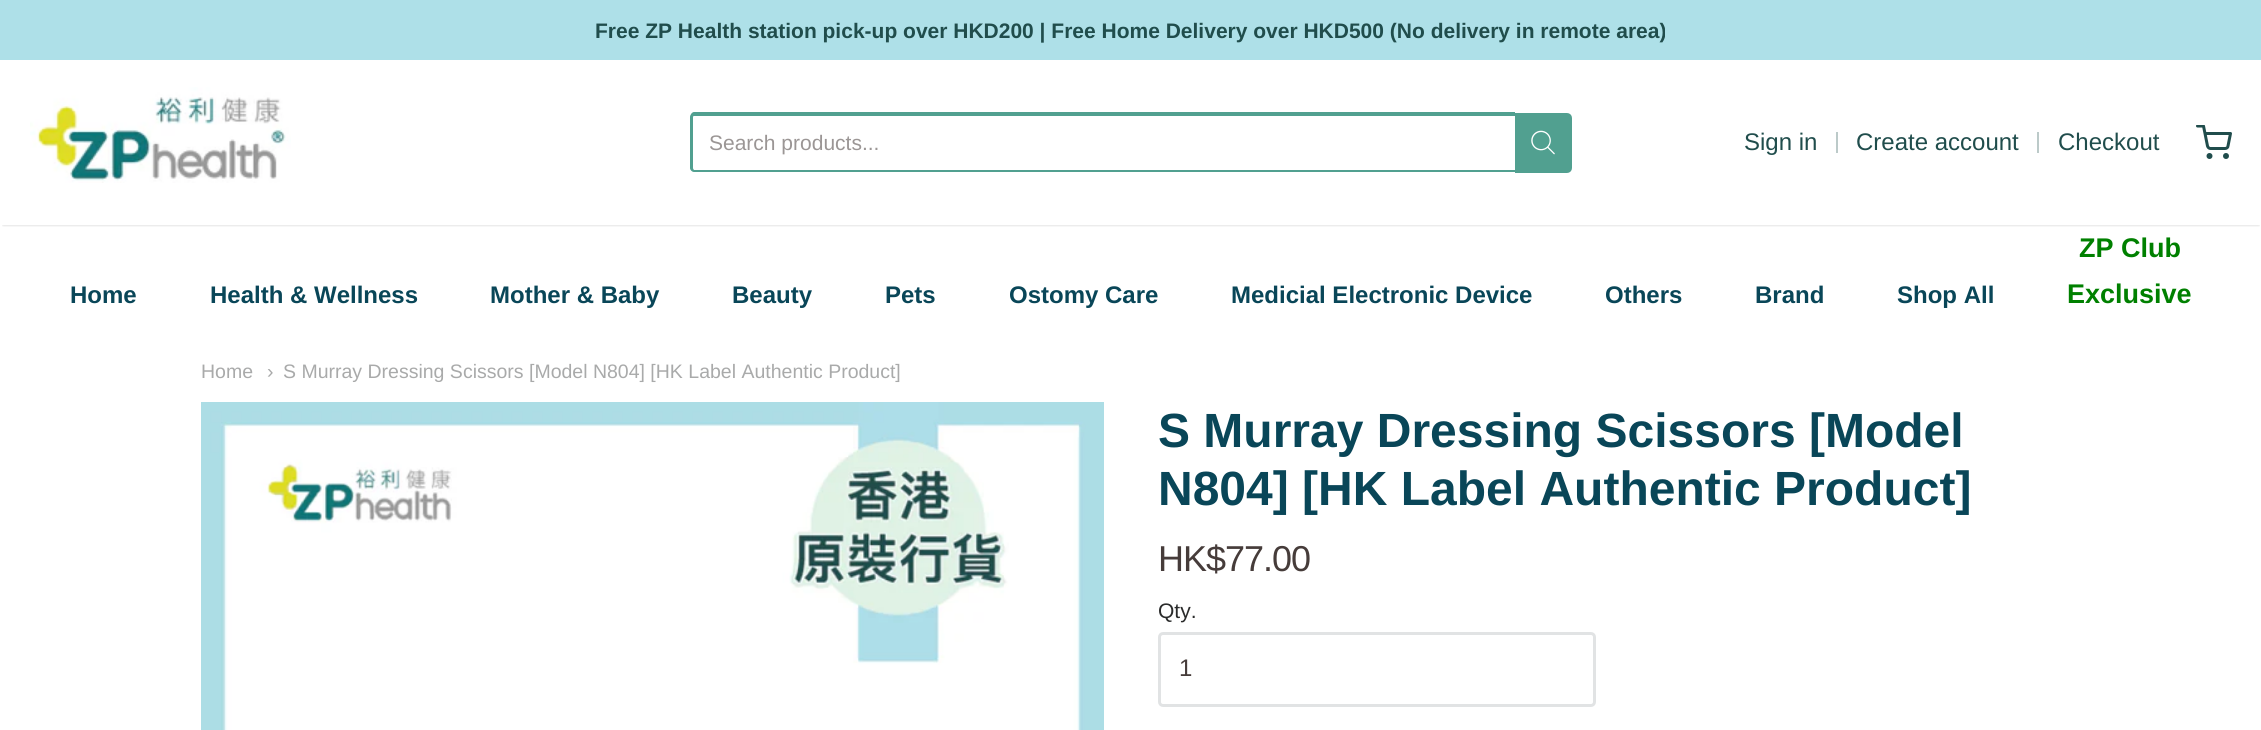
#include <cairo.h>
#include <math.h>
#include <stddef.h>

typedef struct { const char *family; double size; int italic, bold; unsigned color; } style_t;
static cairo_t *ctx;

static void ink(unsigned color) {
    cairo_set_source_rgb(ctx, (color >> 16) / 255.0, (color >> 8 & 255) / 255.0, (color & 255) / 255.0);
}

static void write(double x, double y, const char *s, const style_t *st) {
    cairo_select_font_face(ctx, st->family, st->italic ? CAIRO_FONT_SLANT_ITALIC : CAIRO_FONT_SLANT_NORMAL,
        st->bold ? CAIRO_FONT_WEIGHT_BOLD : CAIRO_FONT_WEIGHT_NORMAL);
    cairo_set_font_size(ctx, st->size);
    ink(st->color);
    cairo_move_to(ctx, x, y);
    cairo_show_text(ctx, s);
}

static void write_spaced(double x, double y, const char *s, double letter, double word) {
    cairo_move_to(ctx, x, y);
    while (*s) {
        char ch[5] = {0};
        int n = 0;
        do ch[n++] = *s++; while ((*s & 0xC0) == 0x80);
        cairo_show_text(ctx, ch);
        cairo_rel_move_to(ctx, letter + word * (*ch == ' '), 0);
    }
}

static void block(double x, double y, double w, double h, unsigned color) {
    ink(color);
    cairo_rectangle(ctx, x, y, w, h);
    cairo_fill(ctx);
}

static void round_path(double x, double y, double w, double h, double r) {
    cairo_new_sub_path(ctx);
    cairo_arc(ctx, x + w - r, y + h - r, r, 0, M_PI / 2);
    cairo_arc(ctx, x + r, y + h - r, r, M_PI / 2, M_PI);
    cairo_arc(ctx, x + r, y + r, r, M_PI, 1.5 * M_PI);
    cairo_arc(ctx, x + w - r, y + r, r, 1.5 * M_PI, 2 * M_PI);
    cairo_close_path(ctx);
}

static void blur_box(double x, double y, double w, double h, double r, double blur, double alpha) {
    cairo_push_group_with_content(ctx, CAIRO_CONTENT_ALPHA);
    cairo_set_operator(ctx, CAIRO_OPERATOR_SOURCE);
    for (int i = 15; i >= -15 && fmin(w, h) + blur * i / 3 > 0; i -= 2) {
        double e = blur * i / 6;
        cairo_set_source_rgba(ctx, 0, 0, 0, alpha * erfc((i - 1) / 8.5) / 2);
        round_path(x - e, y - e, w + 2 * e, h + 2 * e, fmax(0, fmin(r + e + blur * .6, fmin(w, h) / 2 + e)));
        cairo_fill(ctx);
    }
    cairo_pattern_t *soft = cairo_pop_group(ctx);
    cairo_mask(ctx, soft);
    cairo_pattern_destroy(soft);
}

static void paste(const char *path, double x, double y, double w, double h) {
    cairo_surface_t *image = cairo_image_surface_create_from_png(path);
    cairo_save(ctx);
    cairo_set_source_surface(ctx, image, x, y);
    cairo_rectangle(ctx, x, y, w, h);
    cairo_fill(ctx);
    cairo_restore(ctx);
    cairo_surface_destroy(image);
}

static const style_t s1 = {"Liberation Sans", 21, 0, 1, 0x204d4c};
static const style_t s2 = {"Liberation Sans", 21, 0, 0, 0x9b9695};
static const style_t s3 = {"Liberation Sans", 24, 0, 0, 0x204d4c};
static const style_t s4 = {"Liberation Sans", 24, 0, 1, 0x094658};
static const style_t s5 = {"Liberation Sans", 27, 0, 1, 0x008000};
static const style_t s6 = {"Liberation Sans", 19.5, 0, 0, 0xa9aaaa};
static const style_t s7 = {"Liberation Sans", 48, 0, 1, 0x094658};
static const style_t s8 = {"Liberation Sans", 21, 0, 0, 0x2a2b2b};
static const style_t s9 = {"Liberation Sans", 24, 0, 0, 0x463c3a};

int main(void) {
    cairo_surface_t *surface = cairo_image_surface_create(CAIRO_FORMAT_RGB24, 2261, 730);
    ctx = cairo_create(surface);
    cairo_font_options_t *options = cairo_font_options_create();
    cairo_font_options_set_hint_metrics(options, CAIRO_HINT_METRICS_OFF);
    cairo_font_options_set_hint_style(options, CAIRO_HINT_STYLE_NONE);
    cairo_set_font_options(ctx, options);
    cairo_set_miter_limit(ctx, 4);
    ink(0xffffff);
    cairo_paint(ctx);
    block(0, 0, 2261, 60, 0xaee0e8);
    write(595, 38, "Free ZP Health station pick-up over HKD200 | Free Home Delivery over HKD500 (No delivery in remote area)", &s1);
    cairo_save(ctx);
    cairo_rectangle(ctx, 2, 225, 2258, 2);
    cairo_clip(ctx);
    ink(0x000000);
    blur_box(3, 66, 2256, 159, 0, 1.5, 0.2);
    cairo_restore(ctx);
    paste("pic1.png", 30, 87, 261, 96);
    ink(0x51a090);
    cairo_set_fill_rule(ctx, CAIRO_FILL_RULE_EVEN_ODD);
    cairo_new_path(ctx);
    cairo_move_to(ctx, 694, 112);
    cairo_line_to(ctx, 1515, 112);
    cairo_line_to(ctx, 1515, 172);
    cairo_line_to(ctx, 694, 172);
    cairo_curve_to(ctx, 692, 172, 690, 170, 690, 168);
    cairo_line_to(ctx, 690, 117);
    cairo_curve_to(ctx, 690, 115, 692, 112, 694, 112);
    cairo_close_path(ctx);
    cairo_move_to(ctx, 694, 116);
    cairo_line_to(ctx, 1515, 116);
    cairo_line_to(ctx, 1515, 170);
    cairo_line_to(ctx, 694, 170);
    cairo_curve_to(ctx, 694, 170, 693, 169, 693, 168);
    cairo_line_to(ctx, 693, 117);
    cairo_curve_to(ctx, 693, 116, 694, 116, 694, 116);
    cairo_close_path(ctx);
    cairo_fill(ctx);
    write(709, 150, "Search products...", &s2);
    ink(0x51a090);
    cairo_new_path(ctx);
    cairo_move_to(ctx, 1516.5, 114.5);
    cairo_line_to(ctx, 1567, 114.5);
    cairo_curve_to(ctx, 1569, 114.5, 1570.5, 116, 1570.5, 118);
    cairo_line_to(ctx, 1570.5, 168);
    cairo_curve_to(ctx, 1570.5, 170, 1569, 171.5, 1567, 171.5);
    cairo_line_to(ctx, 1516.5, 171.5);
    cairo_close_path(ctx);
    cairo_fill_preserve(ctx);
    cairo_set_line_width(ctx, 3);
    cairo_stroke(ctx);
    paste("pic2.png", 1531, 130, 24, 25);
    write(1744, 150, "Sign in", &s3);
    block(1836, 132, 2, 21, 0xbccac9);
    write(1856, 150, "Create account", &s3);
    block(2037, 132, 2, 21, 0xbccac9);
    write(2058, 150, "Checkout", &s3);
    cairo_save(ctx);
    cairo_set_fill_rule(ctx, CAIRO_FILL_RULE_WINDING);
    cairo_rectangle(ctx, 2196, 125, 36, 36);
    cairo_clip(ctx);
    cairo_new_path(ctx);
    cairo_move_to(ctx, 2197.5, 126);
    cairo_line_to(ctx, 2203.5, 126);
    cairo_line_to(ctx, 2207.5, 146);
    cairo_curve_to(ctx, 2208, 147.5, 2209, 148.5, 2210.5, 148.5);
    cairo_line_to(ctx, 2225, 148.5);
    cairo_curve_to(ctx, 2226.5, 148.5, 2228, 147.5, 2228, 146);
    cairo_line_to(ctx, 2230.5, 133.5);
    cairo_line_to(ctx, 2205, 133.5);
    cairo_set_line_cap(ctx, CAIRO_LINE_CAP_ROUND);
    cairo_set_line_join(ctx, CAIRO_LINE_JOIN_ROUND);
    cairo_stroke(ctx);
    cairo_restore(ctx);
    cairo_arc(ctx, 2209.5, 156, 1.5, 0, 2 * M_PI);
    cairo_stroke(ctx);
    cairo_arc(ctx, 2226, 156, 1.5, 0, 2 * M_PI);
    cairo_stroke(ctx);
    write(70, 303, "Home", &s4);
    write(210, 303, "Health & Wellness", &s4);
    write(490, 303, "Mother & Baby", &s4);
    write(732, 303, "Beauty", &s4);
    write(885, 303, "Pets", &s4);
    write(1009, 303, "Ostomy Care", &s4);
    write(1231, 303, "Medicial Electronic Device", &s4);
    write(1605, 303, "Others", &s4);
    write(1755, 303, "Brand", &s4);
    write(1897, 303, "Shop All", &s4);
    write(2079, 257, "ZP Club", &s5);
    write(2067, 303, "Exclusive", &s5);
    write(201, 378, "Home", &s6);
    write(267, 378, "›", &s6);
    write(283, 378, "S Murray Dressing Scissors [Model N804] [HK Label Authentic Product]", &s6);
    paste("pic3.png", 201, 402, 903, 328);
    write(1158, 447, "S Murray Dressing Scissors [Model", &s7);
    write(1158, 505, "N804] [HK Label Authentic Product]", &s7);
    cairo_select_font_face(ctx, "Liberation Sans", CAIRO_FONT_SLANT_NORMAL, CAIRO_FONT_WEIGHT_NORMAL);
    cairo_set_font_size(ctx, 36);
    ink(0x463c3a);
    write_spaced(1158, 571, "HK$77.00", -1, 0);
    write(1158, 618, "Qty.", &s8);
    round_path(1159.5, 633.5, 435, 72, 3.5);
    ink(0xe1e3e4);
    cairo_stroke(ctx);
    write(1179, 676, "1", &s9);
    cairo_surface_write_to_png(surface, "screenshot.png");
    cairo_font_options_destroy(options);
    cairo_destroy(ctx);
    cairo_surface_destroy(surface);
    return 0;
}
